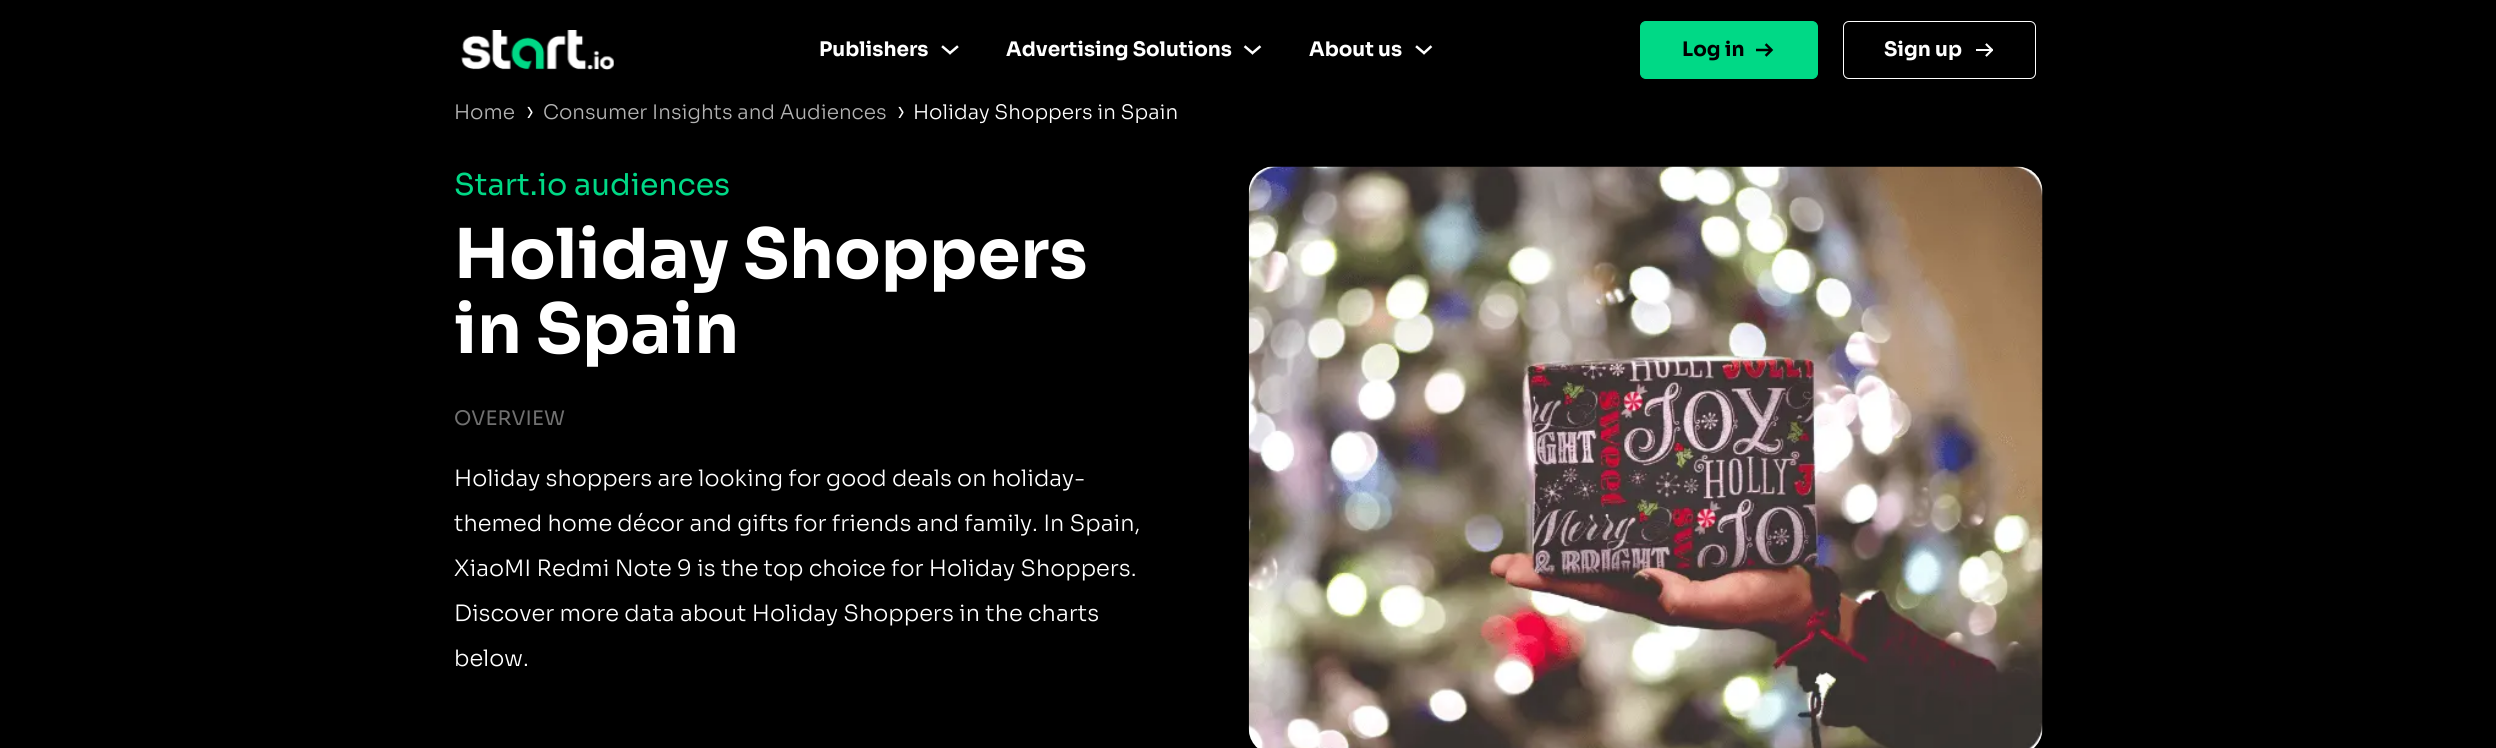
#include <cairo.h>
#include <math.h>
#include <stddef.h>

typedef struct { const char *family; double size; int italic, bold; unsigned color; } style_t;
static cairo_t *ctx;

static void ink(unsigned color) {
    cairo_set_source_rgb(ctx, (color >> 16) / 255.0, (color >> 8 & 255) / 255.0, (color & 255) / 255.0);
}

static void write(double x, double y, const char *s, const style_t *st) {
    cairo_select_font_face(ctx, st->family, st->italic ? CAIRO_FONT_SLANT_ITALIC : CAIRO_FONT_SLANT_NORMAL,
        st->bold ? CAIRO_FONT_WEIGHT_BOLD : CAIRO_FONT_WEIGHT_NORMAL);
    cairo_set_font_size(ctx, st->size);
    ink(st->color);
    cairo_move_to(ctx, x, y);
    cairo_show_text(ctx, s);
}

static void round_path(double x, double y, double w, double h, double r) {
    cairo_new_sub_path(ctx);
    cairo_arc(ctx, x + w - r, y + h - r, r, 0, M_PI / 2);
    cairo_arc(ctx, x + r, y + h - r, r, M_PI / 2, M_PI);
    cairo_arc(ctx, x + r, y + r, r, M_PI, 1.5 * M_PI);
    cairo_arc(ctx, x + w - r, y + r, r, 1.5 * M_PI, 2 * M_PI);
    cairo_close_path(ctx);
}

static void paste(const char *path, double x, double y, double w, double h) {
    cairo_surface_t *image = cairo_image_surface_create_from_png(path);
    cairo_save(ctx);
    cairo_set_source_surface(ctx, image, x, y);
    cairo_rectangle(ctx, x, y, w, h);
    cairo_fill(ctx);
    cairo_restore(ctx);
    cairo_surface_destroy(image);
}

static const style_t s1 = {"Sora", 20, 0, 1, 0xffffff};
static const style_t s2 = {"Sora", 20, 0, 1, 0x000000};
static const style_t s3 = {"Sora Light", 20, 0, 0, 0xb3b3b3};
static const style_t s4 = {"Sora Light", 25, 0, 0, 0xffffff};
static const style_t s5 = {"Sora Light", 20, 0, 0, 0xffffff};
static const style_t s6 = {"Sora", 30, 0, 0, 0x00d986};
static const style_t s7 = {"Sora", 68.75, 0, 1, 0xffffff};
static const style_t s8 = {"Sora", 20, 0, 0, 0x707070};
static const style_t s9 = {"Sora Light", 22.5, 0, 0, 0xffffff};

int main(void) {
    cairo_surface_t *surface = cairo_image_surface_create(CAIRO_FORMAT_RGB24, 2496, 748);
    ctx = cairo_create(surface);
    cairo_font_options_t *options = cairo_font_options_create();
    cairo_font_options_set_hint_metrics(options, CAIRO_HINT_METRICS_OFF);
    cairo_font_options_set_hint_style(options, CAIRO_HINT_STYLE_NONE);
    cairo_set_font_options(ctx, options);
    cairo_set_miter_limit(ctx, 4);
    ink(0x000000);
    cairo_paint(ctx);
    paste("pic1.png", 461, 30, 153, 40);
    write(819, 56, "Publishers", &s1);
    cairo_new_path(ctx);
    cairo_move_to(ctx, 943, 47);
    cairo_line_to(ctx, 950, 53);
    cairo_move_to(ctx, 950, 53);
    cairo_line_to(ctx, 957, 47);
    cairo_set_line_width(ctx, 2.5);
    cairo_set_line_cap(ctx, CAIRO_LINE_CAP_SQUARE);
    cairo_stroke(ctx);
    write(1006, 56, "Advertising Solutions", &s1);
    cairo_new_path(ctx);
    cairo_move_to(ctx, 1245.5, 47);
    cairo_line_to(ctx, 1252.5, 53);
    cairo_move_to(ctx, 1252.5, 53);
    cairo_line_to(ctx, 1259.5, 47);
    cairo_stroke(ctx);
    write(1309, 56, "About us", &s1);
    cairo_new_path(ctx);
    cairo_move_to(ctx, 1417, 47);
    cairo_line_to(ctx, 1424, 53);
    cairo_move_to(ctx, 1424, 53);
    cairo_line_to(ctx, 1430.5, 47);
    cairo_stroke(ctx);
    ink(0x00d986);
    round_path(1640.5, 21.5, 177, 57, 5.5);
    cairo_fill_preserve(ctx);
    cairo_set_line_width(ctx, 1);
    cairo_set_line_cap(ctx, CAIRO_LINE_CAP_BUTT);
    cairo_stroke(ctx);
    write(1682, 56, "Log in", &s2);
    cairo_new_path(ctx);
    cairo_move_to(ctx, 1756, 50);
    cairo_line_to(ctx, 1771.5, 50);
    cairo_set_line_width(ctx, 2.5);
    cairo_stroke(ctx);
    cairo_new_path(ctx);
    cairo_move_to(ctx, 1766.5, 45);
    cairo_line_to(ctx, 1771.5, 50);
    cairo_move_to(ctx, 1766.5, 55);
    cairo_line_to(ctx, 1771.5, 50);
    cairo_set_line_cap(ctx, CAIRO_LINE_CAP_SQUARE);
    cairo_stroke(ctx);
    round_path(1843.5, 21.5, 192, 57, 5.5);
    ink(0xffffff);
    cairo_set_line_width(ctx, 1);
    cairo_set_line_cap(ctx, CAIRO_LINE_CAP_BUTT);
    cairo_stroke(ctx);
    write(1884, 56, "Sign up", &s1);
    paste("pic2.png", 1976, 43, 17, 14);
    write(454, 119, "Home", &s3);
    write(526, 119, "›", &s4);
    write(543, 119, "Consumer Insights and Audiences", &s3);
    write(897, 119, "›", &s4);
    write(913, 119, "Holiday Shoppers in Spain", &s5);
    write(454, 195, "Start.io audiences", &s6);
    write(454, 278, "Holiday Shoppers", &s7);
    write(454, 353, "in Spain", &s7);
    write(454, 425, "OVERVIEW", &s8);
    write(454, 486, "Holiday shoppers are looking for good deals on holiday-", &s9);
    write(454, 531, "themed home décor and gifts for friends and family. In Spain,", &s9);
    write(454, 576, "XiaoMI Redmi Note 9 is the top choice for Holiday Shoppers.", &s9);
    write(454, 621, "Discover more data about Holiday Shoppers in the charts", &s9);
    write(454, 666, "below.", &s9);
    paste("pic3.png", 1248, 166, 795, 582);
    cairo_surface_write_to_png(surface, "screenshot.png");
    cairo_font_options_destroy(options);
    cairo_destroy(ctx);
    cairo_surface_destroy(surface);
    return 0;
}
